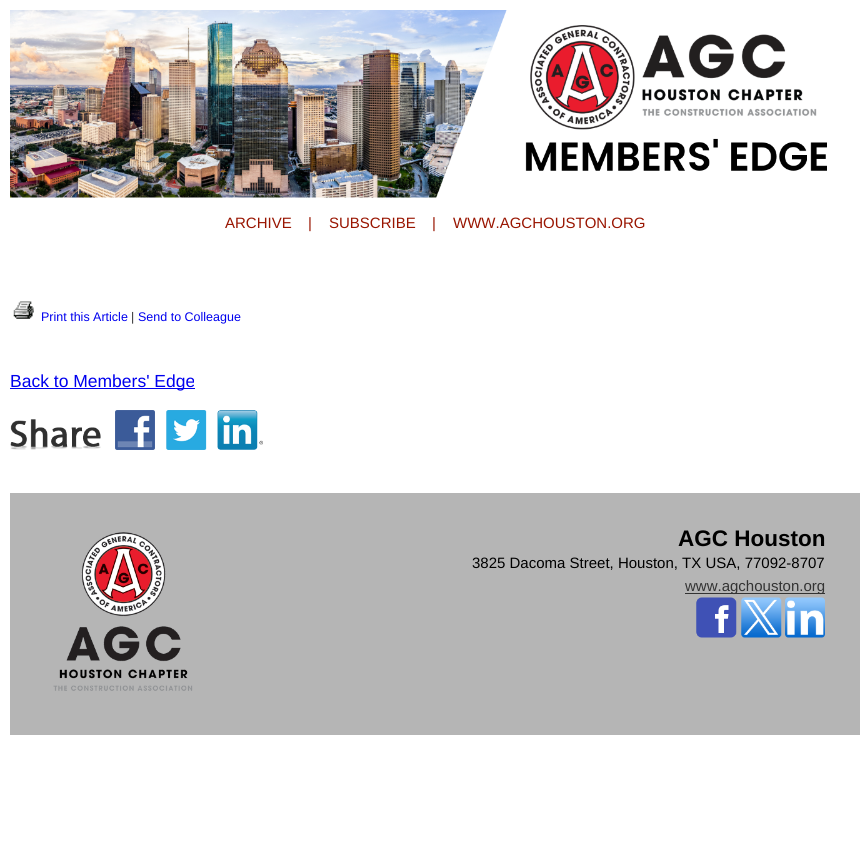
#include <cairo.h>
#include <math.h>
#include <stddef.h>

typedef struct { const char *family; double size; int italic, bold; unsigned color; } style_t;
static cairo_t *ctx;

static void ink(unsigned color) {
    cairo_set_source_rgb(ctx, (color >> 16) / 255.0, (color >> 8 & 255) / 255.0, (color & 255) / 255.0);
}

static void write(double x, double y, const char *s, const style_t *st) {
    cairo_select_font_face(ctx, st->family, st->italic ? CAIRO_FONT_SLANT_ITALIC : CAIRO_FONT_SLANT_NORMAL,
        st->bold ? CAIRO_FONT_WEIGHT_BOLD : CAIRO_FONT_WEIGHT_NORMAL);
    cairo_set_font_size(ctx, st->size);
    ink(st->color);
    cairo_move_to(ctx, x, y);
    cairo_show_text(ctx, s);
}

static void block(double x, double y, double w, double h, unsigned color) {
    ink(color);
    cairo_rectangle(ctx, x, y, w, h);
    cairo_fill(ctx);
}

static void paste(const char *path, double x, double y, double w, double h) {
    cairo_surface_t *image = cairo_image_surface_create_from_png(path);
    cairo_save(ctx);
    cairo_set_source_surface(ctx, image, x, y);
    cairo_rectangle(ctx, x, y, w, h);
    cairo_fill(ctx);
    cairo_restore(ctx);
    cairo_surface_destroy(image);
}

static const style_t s1 = {"Liberation Sans", 15, 0, 0, 0x991501};
static const style_t s2 = {"Liberation Sans", 12.5, 0, 0, 0x0000ee};
static const style_t s3 = {"Liberation Sans", 12.5, 0, 0, 0x333333};
static const style_t s4 = {"Liberation Sans", 17.5, 0, 0, 0x0000ee};
static const style_t s5 = {"Liberation Sans", 22.5, 0, 1, 0x000000};
static const style_t s6 = {"Liberation Sans", 15, 0, 0, 0x000000};
static const style_t s7 = {"Liberation Sans", 15, 0, 0, 0x333333};

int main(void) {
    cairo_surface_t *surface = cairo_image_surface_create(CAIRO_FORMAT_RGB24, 867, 848);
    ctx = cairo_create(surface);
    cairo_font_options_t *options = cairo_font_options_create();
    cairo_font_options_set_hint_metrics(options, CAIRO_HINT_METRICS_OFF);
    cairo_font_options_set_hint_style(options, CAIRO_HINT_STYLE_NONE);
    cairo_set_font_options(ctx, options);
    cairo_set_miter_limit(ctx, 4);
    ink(0xffffff);
    cairo_paint(ctx);
    paste("pic1.png", 10, 10, 817, 188);
    write(225, 228, "ARCHIVE", &s1);
    write(308, 228, "|", &s1);
    write(329, 228, "SUBSCRIBE", &s1);
    write(432, 228, "|", &s1);
    write(453, 228, "WWW.AGCHOUSTON.ORG", &s1);
    paste("pic2.png", 13, 301, 21, 18);
    write(41, 321, "Print this Article", &s2);
    write(131, 321, "|", &s3);
    write(138, 321, "Send to Colleague", &s2);
    block(10, 388, 185, 1, 0x0000ee);
    write(10, 387, "Back to Members' Edge", &s4);
    paste("pic3.png", 10, 419, 91, 31);
    paste("pic4.png", 115, 410, 40, 40);
    paste("pic5.png", 166, 410, 41, 40);
    paste("pic6.png", 217, 410, 46, 40);
    block(10, 493, 850, 242, 0xb5b5b5);
    paste("pic7.png", 53, 532, 140, 159);
    write(678, 546, "AGC Houston", &s5);
    write(472, 568, "3825 Dacoma Street, Houston, TX USA, 77092-8707", &s6);
    block(685, 593, 140, 1, 0x333333);
    write(685, 591, "www.agchouston.org", &s7);
    paste("pic8.png", 696, 597, 41, 41);
    paste("pic9.png", 741, 597, 41, 41);
    paste("pic10.png", 785, 597, 40, 41);
    cairo_surface_write_to_png(surface, "screenshot.png");
    cairo_font_options_destroy(options);
    cairo_destroy(ctx);
    cairo_surface_destroy(surface);
    return 0;
}
